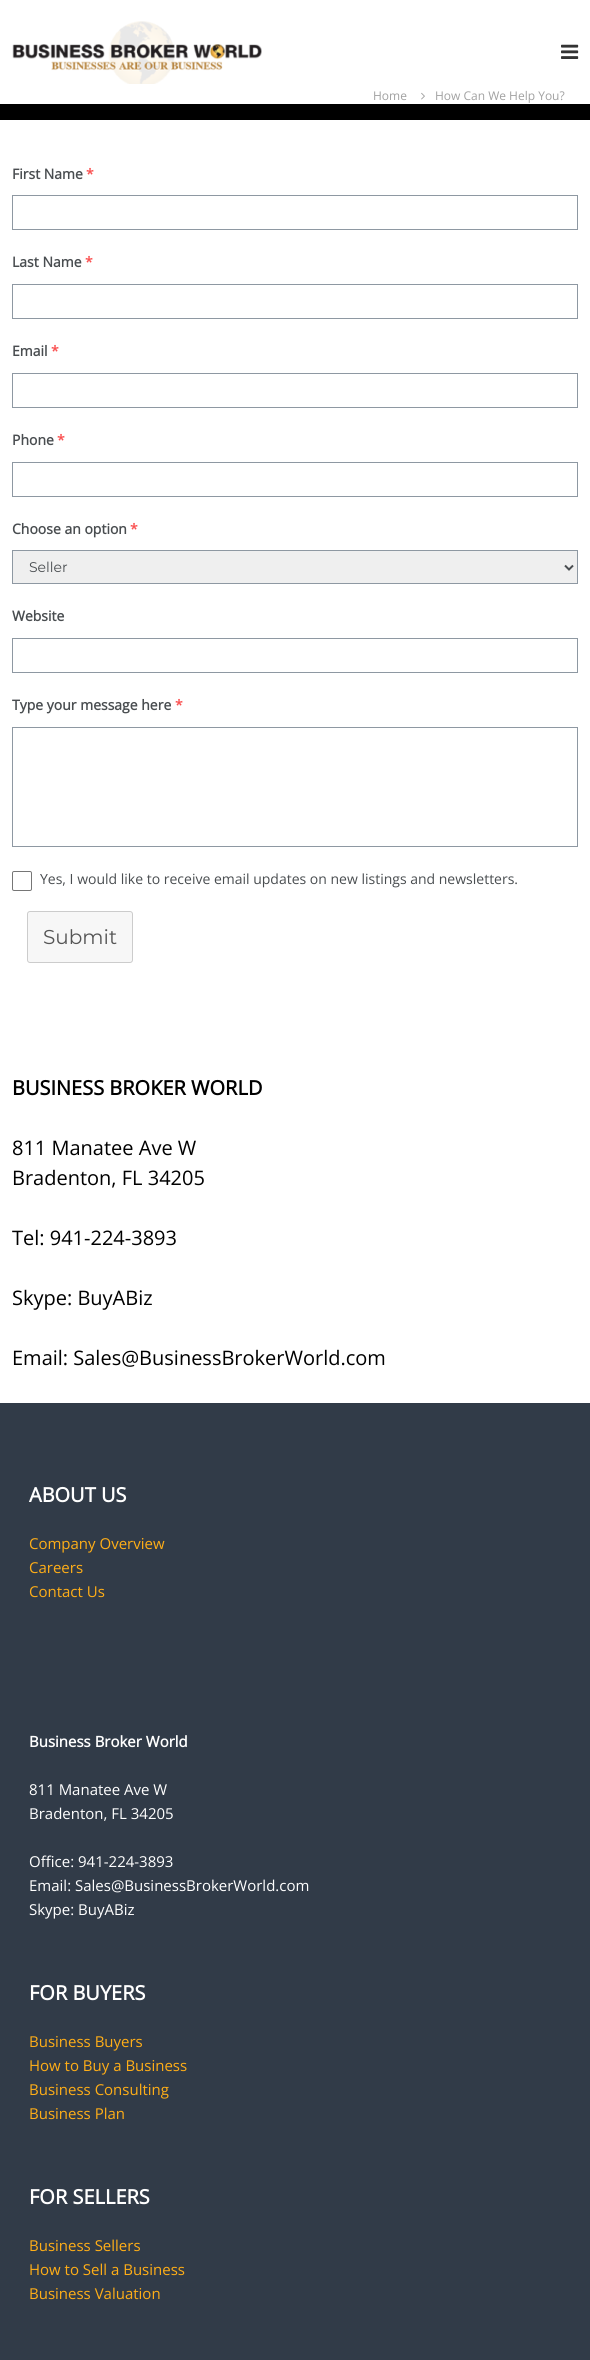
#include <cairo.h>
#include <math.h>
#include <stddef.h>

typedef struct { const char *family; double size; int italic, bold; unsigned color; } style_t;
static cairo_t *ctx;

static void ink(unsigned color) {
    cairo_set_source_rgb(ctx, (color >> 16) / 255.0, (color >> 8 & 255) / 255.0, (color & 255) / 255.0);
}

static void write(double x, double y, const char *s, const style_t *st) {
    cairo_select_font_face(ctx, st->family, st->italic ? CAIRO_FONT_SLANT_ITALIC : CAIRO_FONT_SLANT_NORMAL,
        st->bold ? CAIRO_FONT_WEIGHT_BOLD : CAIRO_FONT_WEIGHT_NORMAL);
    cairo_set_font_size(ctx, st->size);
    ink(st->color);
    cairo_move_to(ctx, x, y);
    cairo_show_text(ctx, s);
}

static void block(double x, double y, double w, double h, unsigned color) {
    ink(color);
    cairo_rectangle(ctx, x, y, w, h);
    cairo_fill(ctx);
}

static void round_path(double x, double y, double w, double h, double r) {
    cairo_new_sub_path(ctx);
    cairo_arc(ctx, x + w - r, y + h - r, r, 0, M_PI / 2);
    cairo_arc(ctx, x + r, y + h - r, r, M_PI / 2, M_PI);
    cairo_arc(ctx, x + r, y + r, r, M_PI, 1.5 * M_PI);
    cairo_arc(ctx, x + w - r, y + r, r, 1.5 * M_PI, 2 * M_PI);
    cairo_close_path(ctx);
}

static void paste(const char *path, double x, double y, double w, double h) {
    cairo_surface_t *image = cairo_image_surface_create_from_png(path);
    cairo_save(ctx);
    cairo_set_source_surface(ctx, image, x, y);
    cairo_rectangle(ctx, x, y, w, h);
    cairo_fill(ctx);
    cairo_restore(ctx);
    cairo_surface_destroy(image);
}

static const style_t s1 = {"Open Sans", 12, 0, 0, 0xa1a1a1};
static const style_t s2 = {"Open Sans", 14, 0, 1, 0x494d50};
static const style_t s3 = {"Open Sans", 14, 0, 1, 0xfa5252};
static const style_t s4 = {"Montserrat", 14, 0, 0, 0x494d50};
static const style_t s5 = {"Open Sans", 14, 0, 0, 0x494d50};
static const style_t s6 = {"Montserrat", 20, 0, 0, 0x555555};
static const style_t s7 = {"Open Sans", 20, 0, 1, 0x000000};
static const style_t s8 = {"Open Sans", 20, 0, 0, 0x000000};
static const style_t s9 = {"Open Sans", 20, 0, 1, 0xffffff};
static const style_t s10 = {"Open Sans", 15, 0, 0, 0xffae17};
static const style_t s11 = {"Open Sans", 15, 0, 1, 0xffffff};
static const style_t s12 = {"Open Sans", 15, 0, 0, 0xffffff};

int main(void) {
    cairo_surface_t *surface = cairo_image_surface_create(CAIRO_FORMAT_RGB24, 590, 2360);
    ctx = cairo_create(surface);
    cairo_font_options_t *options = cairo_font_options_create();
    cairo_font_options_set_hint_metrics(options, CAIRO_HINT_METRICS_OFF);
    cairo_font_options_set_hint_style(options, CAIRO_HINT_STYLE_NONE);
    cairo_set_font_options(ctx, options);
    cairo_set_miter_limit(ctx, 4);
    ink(0xffffff);
    cairo_paint(ctx);
    paste("pic1.png", 12, 21, 250, 63);
    paste("pic2.png", 561, 44, 18, 15);
    block(0, 104, 590, 16, 0x000000);
    write(373, 100, "Home", &s1);
    paste("pic3.png", 421, 92, 4, 8);
    write(435, 100, "How Can We Help You?", &s1);
    write(12, 179, "First Name", &s2);
    write(86, 179, "*", &s3);
    cairo_rectangle(ctx, 12.5, 195.5, 565, 34);
    ink(0x8e98a2);
    cairo_set_line_width(ctx, 1);
    cairo_stroke(ctx);
    write(12, 267, "Last Name", &s2);
    write(85, 267, "*", &s3);
    cairo_rectangle(ctx, 12.5, 284.5, 565, 34);
    ink(0x8e98a2);
    cairo_stroke(ctx);
    write(12, 356, "Email", &s2);
    write(51, 356, "*", &s3);
    cairo_rectangle(ctx, 12.5, 373.5, 565, 34);
    ink(0x8e98a2);
    cairo_stroke(ctx);
    write(12, 445, "Phone", &s2);
    write(57, 445, "*", &s3);
    cairo_rectangle(ctx, 12.5, 462.5, 565, 34);
    ink(0x8e98a2);
    cairo_stroke(ctx);
    write(12, 534, "Choose an option", &s2);
    write(130, 534, "*", &s3);
    ink(0xefefef);
    cairo_rectangle(ctx, 12.5, 550.5, 565, 33);
    cairo_fill_preserve(ctx);
    ink(0x8e98a2);
    cairo_stroke(ctx);
    cairo_new_path(ctx);
    cairo_move_to(ctx, 565, 565.5);
    cairo_line_to(ctx, 569, 569.5);
    cairo_line_to(ctx, 573, 565.5);
    ink(0x494d50);
    cairo_set_line_width(ctx, 2);
    cairo_stroke(ctx);
    write(29, 572, "Seller", &s4);
    write(12, 621, "Website", &s2);
    cairo_rectangle(ctx, 12.5, 638.5, 565, 34);
    ink(0x8e98a2);
    cairo_set_line_width(ctx, 1);
    cairo_stroke(ctx);
    write(12, 710, "Type your message here", &s2);
    write(175, 710, "*", &s3);
    cairo_rectangle(ctx, 12.5, 727.5, 565, 119);
    ink(0x8e98a2);
    cairo_stroke(ctx);
    round_path(12.5, 871.5, 19, 19, 1.5);
    ink(0x767676);
    cairo_stroke(ctx);
    write(40, 884, "Yes, I would like to receive email updates on new listings and newsletters.", &s5);
    ink(0xf7f7f7);
    round_path(27.5, 911.5, 105, 51, 2.5);
    cairo_fill_preserve(ctx);
    ink(0xcccccc);
    cairo_stroke(ctx);
    write(43, 944, "Submit", &s6);
    write(12, 1095, "BUSINESS BROKER WORLD", &s7);
    write(12, 1155, "811 Manatee Ave W", &s8);
    write(12, 1185, "Bradenton, FL 34205", &s8);
    write(12, 1245, "Tel: 941-224-3893", &s8);
    write(12, 1305, "Skype: BuyABiz", &s8);
    write(12, 1365, "Email: Sales@BusinessBrokerWorld.com", &s8);
    block(0, 1403, 590, 957, 0x313b48);
    write(29, 1502, "ABOUT US", &s9);
    write(29, 1549, "Company Overview", &s10);
    write(29, 1573, "Careers", &s10);
    write(29, 1597, "Contact Us", &s10);
    write(29, 1747, "Business Broker World", &s11);
    write(29, 1795, "811 Manatee Ave W", &s12);
    write(29, 1819, "Bradenton, FL 34205", &s12);
    write(29, 1867, "Office: 941-224-3893", &s12);
    write(29, 1891, "Email: Sales@BusinessBrokerWorld.com", &s12);
    write(29, 1915, "Skype: BuyABiz", &s12);
    write(29, 2000, "FOR BUYERS", &s9);
    write(29, 2047, "Business Buyers", &s10);
    write(29, 2071, "How to Buy a Business", &s10);
    write(29, 2095, "Business Consulting", &s10);
    write(29, 2119, "Business Plan", &s10);
    write(29, 2204, "FOR SELLERS", &s9);
    write(29, 2251, "Business Sellers", &s10);
    write(29, 2275, "How to Sell a Business", &s10);
    write(29, 2299, "Business Valuation", &s10);
    cairo_surface_write_to_png(surface, "screenshot.png");
    cairo_font_options_destroy(options);
    cairo_destroy(ctx);
    cairo_surface_destroy(surface);
    return 0;
}
